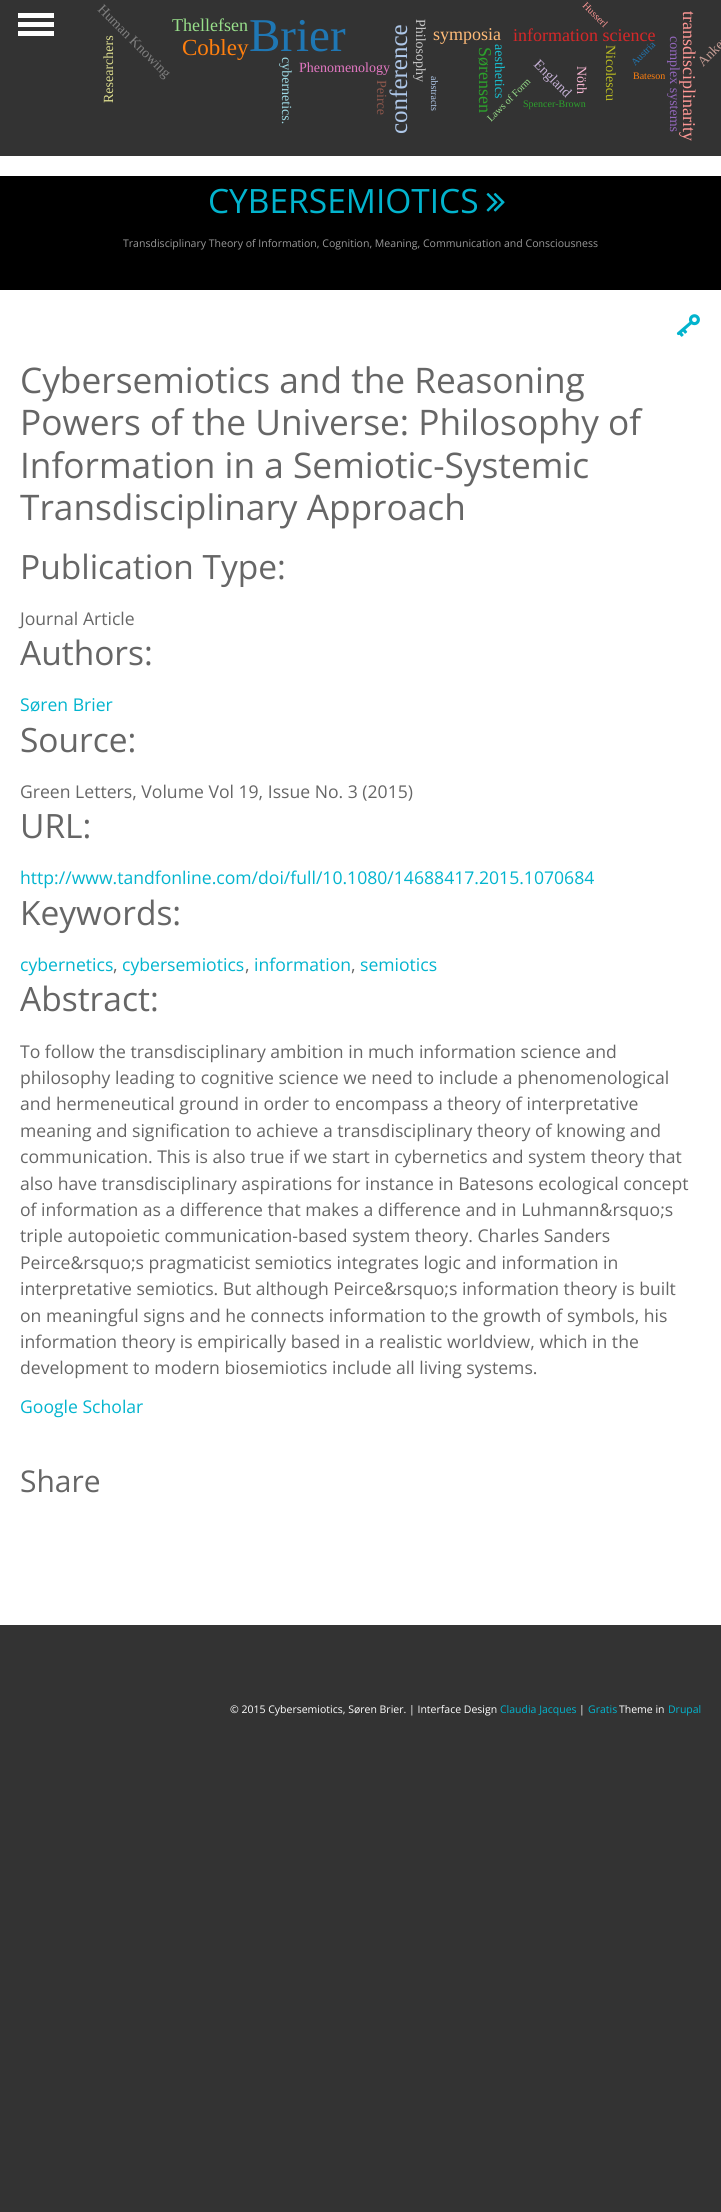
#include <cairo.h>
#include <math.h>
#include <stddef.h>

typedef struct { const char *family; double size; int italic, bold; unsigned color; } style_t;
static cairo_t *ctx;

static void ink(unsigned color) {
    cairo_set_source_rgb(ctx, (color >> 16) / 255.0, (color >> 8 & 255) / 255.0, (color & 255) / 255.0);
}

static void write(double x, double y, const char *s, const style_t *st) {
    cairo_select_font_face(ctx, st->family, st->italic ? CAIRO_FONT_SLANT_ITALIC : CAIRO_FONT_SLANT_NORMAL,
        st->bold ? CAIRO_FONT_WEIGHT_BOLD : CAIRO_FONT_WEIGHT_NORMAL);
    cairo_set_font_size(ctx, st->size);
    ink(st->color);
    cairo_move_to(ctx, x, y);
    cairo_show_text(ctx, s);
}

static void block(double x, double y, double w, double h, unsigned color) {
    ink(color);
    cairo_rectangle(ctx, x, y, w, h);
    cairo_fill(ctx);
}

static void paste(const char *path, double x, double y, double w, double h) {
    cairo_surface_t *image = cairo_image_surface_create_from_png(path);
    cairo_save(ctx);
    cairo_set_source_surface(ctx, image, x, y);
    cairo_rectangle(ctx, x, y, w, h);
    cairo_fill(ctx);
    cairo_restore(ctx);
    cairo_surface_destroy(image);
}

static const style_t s1 = {"Liberation Serif", 14, 0, 0, 0x7f7f7f};
static const style_t s2 = {"Liberation Serif", 18, 0, 0, 0x98df8a};
static const style_t s3 = {"Liberation Serif", 47, 0, 0, 0x1f77b4};
static const style_t s4 = {"Liberation Serif", 25, 0, 0, 0xaec7e8};
static const style_t s5 = {"Liberation Serif", 14, 0, 0, 0xc7c7c7};
static const style_t s6 = {"Liberation Serif", 18, 0, 0, 0xffbb78};
static const style_t s7 = {"Liberation Serif", 10, 0, 0, 0xff9896};
static const style_t s8 = {"Liberation Serif", 18, 0, 0, 0xff9896};
static const style_t s9 = {"Liberation Serif", 14, 0, 0, 0xdbdb8d};
static const style_t s10 = {"Liberation Serif", 23, 0, 0, 0xff7f0e};
static const style_t s11 = {"Liberation Serif", 18, 0, 0, 0xd62728};
static const style_t s12 = {"Liberation Serif", 14, 0, 0, 0x9467bd};
static const style_t s13 = {"Liberation Serif", 14, 0, 0, 0xc49c94};
static const style_t s14 = {"Liberation Serif", 14, 0, 0, 0x9edae5};
static const style_t s15 = {"Liberation Serif", 14, 0, 0, 0xe377c2};
static const style_t s16 = {"Liberation Serif", 18, 0, 0, 0x2ca02c};
static const style_t s17 = {"Liberation Serif", 14, 0, 0, 0x17becf};
static const style_t s18 = {"Liberation Serif", 14, 0, 0, 0xc5b0d5};
static const style_t s19 = {"Liberation Serif", 14, 0, 0, 0xf7b6d2};
static const style_t s20 = {"Liberation Serif", 14, 0, 0, 0xbcbd22};
static const style_t s21 = {"Liberation Serif", 10, 0, 0, 0x1f77b4};
static const style_t s22 = {"Liberation Serif", 14, 0, 0, 0x8c564b};
static const style_t s23 = {"Liberation Serif", 10, 0, 0, 0xaec7e8};
static const style_t s24 = {"Liberation Serif", 10, 0, 0, 0x2ca02c};
static const style_t s25 = {"Liberation Serif", 10, 0, 0, 0x98df8a};
static const style_t s26 = {"Liberation Serif", 10, 0, 0, 0xff7f0e};
static const style_t s27 = {"Open Sans", 33.5, 0, 0, 0x02b4ce};
static const style_t s28 = {"Open Sans", 10.55, 0, 0, 0x999999};
static const style_t s29 = {"Open Sans", 35.25, 0, 0, 0x666666};
static const style_t s30 = {"Open Sans", 33.5, 0, 0, 0x666666};
static const style_t s31 = {"Open Sans", 17.6, 0, 0, 0x666666};
static const style_t s32 = {"Open Sans", 17.6, 0, 0, 0x02b4ce};
static const style_t s33 = {"Open Sans", 30, 0, 0, 0x666666};
static const style_t s34 = {"Open Sans", 10.5, 0, 0, 0xffffff};
static const style_t s35 = {"Open Sans", 10.5, 0, 0, 0x02b4ce};

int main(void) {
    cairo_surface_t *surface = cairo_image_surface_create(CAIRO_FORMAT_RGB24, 721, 2212);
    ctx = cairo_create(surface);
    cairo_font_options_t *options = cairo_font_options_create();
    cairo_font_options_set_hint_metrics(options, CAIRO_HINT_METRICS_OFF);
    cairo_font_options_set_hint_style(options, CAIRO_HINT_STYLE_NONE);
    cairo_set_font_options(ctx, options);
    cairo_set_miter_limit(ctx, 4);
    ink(0x333333);
    cairo_paint(ctx);
    block(0, 156, 721, 1469, 0xffffff);
    paste("pic1.png", 18, 13, 36, 23);
    cairo_save(ctx);
    cairo_translate(ctx, 97, 10);
    cairo_rotate(ctx, 45 * M_PI / 180);
    write(0, 0, "Human Knowing", &s1);
    cairo_restore(ctx);
    write(172, 31, "Thellefsen", &s2);
    write(249, 51, "Brier", &s3);
    cairo_save(ctx);
    cairo_translate(ctx, 407, 134);
    cairo_rotate(ctx, -90 * M_PI / 180);
    write(0, 0, "conference", &s4);
    cairo_restore(ctx);
    cairo_save(ctx);
    cairo_translate(ctx, 416, 19);
    cairo_rotate(ctx, 90 * M_PI / 180);
    write(0, 0, "Philosophy", &s5);
    cairo_restore(ctx);
    write(433, 40, "symposia", &s6);
    cairo_save(ctx);
    cairo_translate(ctx, 582, 6);
    cairo_rotate(ctx, 45 * M_PI / 180);
    write(0, 0, "Husserl", &s7);
    cairo_restore(ctx);
    cairo_save(ctx);
    cairo_translate(ctx, 683, 11);
    cairo_rotate(ctx, 90 * M_PI / 180);
    write(0, 0, "transdisciplinarity", &s8);
    cairo_restore(ctx);
    cairo_save(ctx);
    cairo_translate(ctx, 113, 103);
    cairo_rotate(ctx, -90 * M_PI / 180);
    write(0, 0, "Researchers", &s9);
    cairo_restore(ctx);
    write(182, 55, "Cobley", &s10);
    write(513, 41, "information science", &s11);
    cairo_save(ctx);
    cairo_translate(ctx, 670, 36);
    cairo_rotate(ctx, 90 * M_PI / 180);
    write(0, 0, "complex systems", &s12);
    cairo_restore(ctx);
    cairo_save(ctx);
    cairo_translate(ctx, 703, 67);
    cairo_rotate(ctx, -45 * M_PI / 180);
    write(0, 0, "Anker", &s13);
    cairo_restore(ctx);
    cairo_save(ctx);
    cairo_translate(ctx, 282, 57);
    cairo_rotate(ctx, 90 * M_PI / 180);
    write(0, 0, "cybernetics.", &s14);
    cairo_restore(ctx);
    write(299, 72, "Phenomenology", &s15);
    cairo_save(ctx);
    cairo_translate(ctx, 479, 47);
    cairo_rotate(ctx, 90 * M_PI / 180);
    write(0, 0, "Sørensen", &s16);
    cairo_restore(ctx);
    cairo_save(ctx);
    cairo_translate(ctx, 495, 44);
    cairo_rotate(ctx, 90 * M_PI / 180);
    write(0, 0, "aesthetics", &s17);
    cairo_restore(ctx);
    cairo_save(ctx);
    cairo_translate(ctx, 533, 65);
    cairo_rotate(ctx, 45 * M_PI / 180);
    write(0, 0, "England", &s18);
    cairo_restore(ctx);
    cairo_save(ctx);
    cairo_translate(ctx, 577, 66);
    cairo_rotate(ctx, 90 * M_PI / 180);
    write(0, 0, "Nöth", &s19);
    cairo_restore(ctx);
    cairo_save(ctx);
    cairo_translate(ctx, 606, 45);
    cairo_rotate(ctx, 90 * M_PI / 180);
    write(0, 0, "Nicolescu", &s20);
    cairo_restore(ctx);
    cairo_save(ctx);
    cairo_translate(ctx, 635, 66);
    cairo_rotate(ctx, -45 * M_PI / 180);
    write(0, 0, "Austria", &s21);
    cairo_restore(ctx);
    cairo_save(ctx);
    cairo_translate(ctx, 377, 80);
    cairo_rotate(ctx, 90 * M_PI / 180);
    write(0, 0, "Peirce", &s22);
    cairo_restore(ctx);
    cairo_save(ctx);
    cairo_translate(ctx, 431, 76);
    cairo_rotate(ctx, 90 * M_PI / 180);
    write(0, 0, "abstracts", &s23);
    cairo_restore(ctx);
    write(523, 107, "Spencer-Brown", &s24);
    cairo_save(ctx);
    cairo_translate(ctx, 491, 122);
    cairo_rotate(ctx, -45 * M_PI / 180);
    write(0, 0, "Laws of Form", &s25);
    cairo_restore(ctx);
    write(633, 79, "Bateson", &s26);
    block(0, 176, 721, 114, 0x000000);
    write(208, 213, "CYBERSEMIOTICS", &s27);
    paste("pic2.png", 486, 193, 19, 19);
    write(123, 247, "Transdisciplinary Theory of Information, Cognition, Meaning, Communication and Consciousness", &s28);
    paste("pic3.png", 676, 314, 24, 23);
    write(20, 393, "Cybersemiotics and the Reasoning", &s29);
    write(20, 435, "Powers of the Universe: Philosophy of", &s29);
    write(20, 478, "Information in a Semiotic-Systemic", &s29);
    write(20, 520, "Transdisciplinary Approach", &s29);
    write(20, 579, "Publication Type:", &s30);
    write(20, 625, "Journal Article", &s31);
    write(20, 665, "Authors:", &s30);
    write(20, 711, "Søren Brier", &s32);
    write(20, 752, "Source:", &s30);
    write(20, 798, "Green Letters, Volume Vol 19, Issue No. 3 (2015)", &s31);
    write(20, 838, "URL:", &s30);
    write(20, 884, "http://www.tandfonline.com/doi/full/10.1080/14688417.2015.1070684", &s32);
    write(20, 925, "Keywords:", &s30);
    write(20, 971, "cybernetics", &s32);
    write(113, 971, ",", &s31);
    write(122, 971, "cybersemiotics", &s32);
    write(245, 971, ",", &s31);
    write(254, 971, "information", &s32);
    write(351, 971, ",", &s31);
    write(360, 971, "semiotics", &s32);
    write(20, 1011, "Abstract:", &s30);
    write(20, 1058, "To follow the transdisciplinary ambition in much information science and", &s31);
    write(20, 1084, "philosophy leading to cognitive science we need to include a phenomenological", &s31);
    write(20, 1110, "and hermeneutical ground in order to encompass a theory of interpretative", &s31);
    write(20, 1137, "meaning and signification to achieve a transdisciplinary theory of knowing and", &s31);
    write(20, 1163, "communication. This is also true if we start in cybernetics and system theory that", &s31);
    write(20, 1190, "also have transdisciplinary aspirations for instance in Batesons ecological concept", &s31);
    write(20, 1216, "of information as a difference that makes a difference and in Luhmann&rsquo;s", &s31);
    write(20, 1242, "triple autopoietic communication-based system theory. Charles Sanders", &s31);
    write(20, 1269, "Peirce&rsquo;s pragmaticist semiotics integrates logic and information in", &s31);
    write(20, 1295, "interpretative semiotics. But although Peirce&rsquo;s information theory is built", &s31);
    write(20, 1322, "on meaningful signs and he connects information to the growth of symbols, his", &s31);
    write(20, 1348, "information theory is empirically based in a realistic worldview, which in the", &s31);
    write(20, 1374, "development to modern biosemiotics include all living systems.", &s31);
    write(20, 1413, "Google Scholar", &s32);
    write(20, 1492, "Share", &s33);
    write(230, 1713, "© 2015 Cybersemiotics, Søren Brier. | Interface Design", &s34);
    write(500, 1713, "Claudia Jacques", &s35);
    write(579, 1713, "|", &s34);
    write(588, 1713, "Gratis", &s35);
    write(619, 1713, "Theme in", &s34);
    write(668, 1713, "Drupal", &s35);
    cairo_surface_write_to_png(surface, "screenshot.png");
    cairo_font_options_destroy(options);
    cairo_destroy(ctx);
    cairo_surface_destroy(surface);
    return 0;
}
